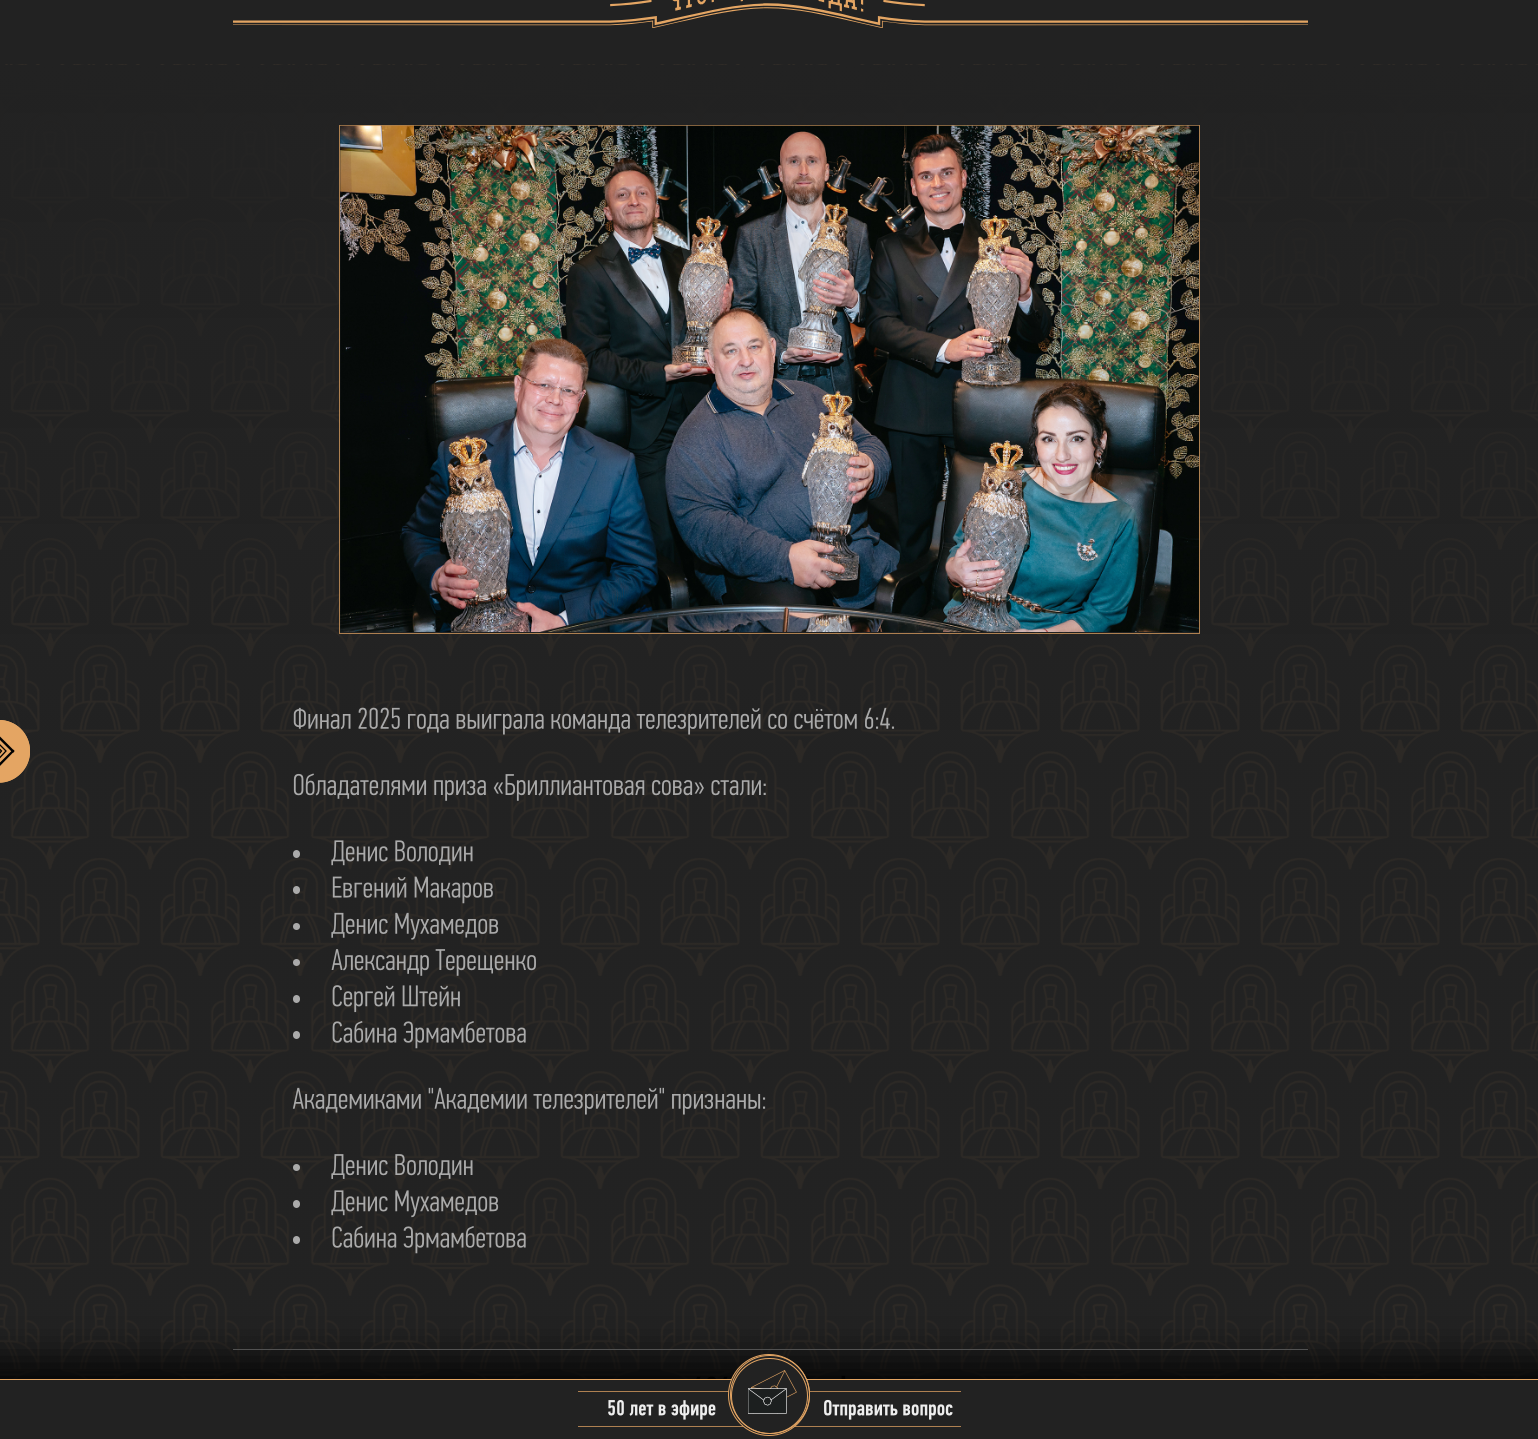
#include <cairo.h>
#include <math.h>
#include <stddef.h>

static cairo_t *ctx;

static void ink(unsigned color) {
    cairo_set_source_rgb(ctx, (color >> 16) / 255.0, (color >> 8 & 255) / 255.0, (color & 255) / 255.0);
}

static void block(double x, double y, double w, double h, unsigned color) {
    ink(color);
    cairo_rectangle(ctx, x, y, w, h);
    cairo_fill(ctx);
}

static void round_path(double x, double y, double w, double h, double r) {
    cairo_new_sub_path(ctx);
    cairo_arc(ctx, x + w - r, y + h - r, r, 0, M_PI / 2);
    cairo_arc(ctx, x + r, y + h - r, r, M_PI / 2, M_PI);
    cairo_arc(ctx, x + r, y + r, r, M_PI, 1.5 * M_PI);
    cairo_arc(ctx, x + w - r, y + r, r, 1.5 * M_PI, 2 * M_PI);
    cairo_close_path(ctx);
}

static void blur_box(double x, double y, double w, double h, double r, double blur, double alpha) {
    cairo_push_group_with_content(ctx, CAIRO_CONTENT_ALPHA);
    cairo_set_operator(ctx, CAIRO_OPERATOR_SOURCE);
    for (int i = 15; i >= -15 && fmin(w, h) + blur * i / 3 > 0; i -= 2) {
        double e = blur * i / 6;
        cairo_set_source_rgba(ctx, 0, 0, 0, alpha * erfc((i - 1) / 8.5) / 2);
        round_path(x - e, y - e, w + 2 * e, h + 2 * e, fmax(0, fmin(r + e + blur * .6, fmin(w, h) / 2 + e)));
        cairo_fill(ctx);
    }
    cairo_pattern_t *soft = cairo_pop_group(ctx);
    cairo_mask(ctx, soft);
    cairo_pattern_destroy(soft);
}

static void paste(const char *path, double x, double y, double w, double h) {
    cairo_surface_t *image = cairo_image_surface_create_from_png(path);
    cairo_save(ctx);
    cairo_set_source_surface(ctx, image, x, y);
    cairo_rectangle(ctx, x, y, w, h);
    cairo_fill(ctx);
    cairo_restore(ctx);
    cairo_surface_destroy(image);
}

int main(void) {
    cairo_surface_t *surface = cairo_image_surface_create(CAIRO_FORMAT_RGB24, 1538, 1439);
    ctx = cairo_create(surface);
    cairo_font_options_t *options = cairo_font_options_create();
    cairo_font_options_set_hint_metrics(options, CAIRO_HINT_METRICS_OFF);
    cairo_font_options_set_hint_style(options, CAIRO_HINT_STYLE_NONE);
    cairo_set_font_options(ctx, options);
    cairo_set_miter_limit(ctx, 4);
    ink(0x222222);
    cairo_paint(ctx);
    paste("pic1.png", 233, 0, 1075, 28);
    paste("pic2.png", 0, 64, 1538, 1315);
    ink(0xe4a563);
    cairo_new_path(ctx);
    cairo_move_to(ctx, -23, 773);
    cairo_curve_to(ctx, -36, 761, -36, 741, -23, 729);
    cairo_curve_to(ctx, -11, 717, 9, 717, 21, 729);
    cairo_curve_to(ctx, 33, 741, 33, 761, 21, 773);
    cairo_curve_to(ctx, 9, 786, -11, 786, -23, 773);
    cairo_close_path(ctx);
    cairo_fill(ctx);
    cairo_save(ctx);
    cairo_rectangle(ctx, 0, 720, 30, 63);
    cairo_clip(ctx);
    cairo_new_path(ctx);
    cairo_move_to(ctx, -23, 773);
    cairo_curve_to(ctx, -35, 761, -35, 741.5, -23, 729.5);
    cairo_curve_to(ctx, -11, 717.5, 8.5, 717.5, 20.5, 729.5);
    cairo_curve_to(ctx, 32.5, 741.5, 32.5, 761, 20.5, 773);
    cairo_curve_to(ctx, 8.5, 785, -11, 785, -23, 773);
    cairo_close_path(ctx);
    cairo_set_line_width(ctx, 1.3);
    cairo_stroke(ctx);
    cairo_restore(ctx);
    cairo_new_path(ctx);
    cairo_move_to(ctx, -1, 758.5);
    cairo_line_to(ctx, -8.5, 751.5);
    cairo_line_to(ctx, -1, 744);
    cairo_line_to(ctx, 6, 751);
    cairo_close_path(ctx);
    ink(0x000000);
    cairo_set_line_width(ctx, 1.3);
    cairo_stroke(ctx);
    cairo_new_path(ctx);
    cairo_move_to(ctx, 13, 753);
    cairo_line_to(ctx, -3.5, 736.5);
    cairo_line_to(ctx, -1.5, 735);
    cairo_line_to(ctx, 14.5, 751);
    cairo_close_path(ctx);
    cairo_fill(ctx);
    cairo_new_path(ctx);
    cairo_move_to(ctx, -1.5, 767.5);
    cairo_line_to(ctx, -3.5, 766);
    cairo_line_to(ctx, 13, 749.5);
    cairo_line_to(ctx, 14.5, 751);
    cairo_close_path(ctx);
    cairo_fill(ctx);
    cairo_new_path(ctx);
    cairo_move_to(ctx, -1, 754);
    cairo_line_to(ctx, -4, 751);
    cairo_line_to(ctx, -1, 748.5);
    cairo_line_to(ctx, 1.5, 751);
    cairo_close_path(ctx);
    cairo_stroke(ctx);
    block(233, 1349, 1075, 1, 0x777777);
    cairo_rectangle(ctx, 339.5, 125.5, 860, 508);
    cairo_set_source_rgba(ctx, 0.894, 0.647, 0.388, 0.72);
    cairo_set_line_width(ctx, 1);
    cairo_stroke(ctx);
    paste("pic3.png", 340, 125, 859, 507);
    paste("pic4.png", 293, 707, 602, 28);
    paste("pic5.png", 293, 773, 473, 28);
    ink(0xaaaaaa);
    round_path(293, 850, 7, 8, 3.5);
    cairo_fill(ctx);
    paste("pic6.png", 331, 840, 142, 26);
    round_path(293, 886, 7, 8, 3.5);
    cairo_fill(ctx);
    paste("pic7.png", 332, 876, 161, 28);
    cairo_arc(ctx, 296.5, 926.5, 3.5, 0, 2 * M_PI);
    cairo_fill(ctx);
    paste("pic8.png", 331, 912, 168, 28);
    cairo_arc(ctx, 296.5, 962.5, 3.5, 0, 2 * M_PI);
    cairo_fill(ctx);
    paste("pic9.png", 331, 949, 205, 27);
    round_path(293, 995, 7, 8, 3.5);
    cairo_fill(ctx);
    paste("pic10.png", 332, 985, 128, 28);
    round_path(293, 1031, 7, 8, 3.5);
    cairo_fill(ctx);
    paste("pic11.png", 332, 1021, 194, 28);
    paste("pic12.png", 292, 1087, 474, 28);
    cairo_arc(ctx, 296.5, 1167.5, 3.5, 0, 2 * M_PI);
    cairo_fill(ctx);
    paste("pic13.png", 331, 1154, 142, 25);
    round_path(293, 1200, 7, 8, 3.5);
    cairo_fill(ctx);
    paste("pic14.png", 331, 1190, 168, 28);
    round_path(293, 1236, 7, 8, 3.5);
    cairo_fill(ctx);
    paste("pic15.png", 332, 1226, 194, 28);
    paste("pic16.png", 696, 1375, 150, 4);
    ink(0x000000);
    blur_box(-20, 1359, 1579, 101, 0, 20, 0.87);
    block(0, 1380, 1538, 59, 0x222222);
    block(0, 1379, 1538, 1, 0xe4a563);
    block(578, 1391, 151, 1, 0xae8051);
    block(578, 1426, 168, 1, 0xae8051);
    paste("pic17.png", 608, 1400, 108, 20);
    block(809, 1391, 152, 1, 0xae8051);
    block(793, 1426, 168, 1, 0xae8051);
    ink(0x222222);
    cairo_arc(ctx, 769, 1395, 40.5, 0, 2 * M_PI);
    cairo_fill_preserve(ctx);
    ink(0xe4a563);
    cairo_stroke(ctx);
    round_path(730.5, 1355.5, 79, 78, 39);
    cairo_stroke(ctx);
    paste("pic18.png", 748, 1370, 49, 44);
    round_path(731.5, 1358.5, 76, 75, 37.5);
    cairo_stroke(ctx);
    paste("pic19.png", 824, 1399, 129, 21);
    cairo_surface_write_to_png(surface, "screenshot.png");
    cairo_font_options_destroy(options);
    cairo_destroy(ctx);
    cairo_surface_destroy(surface);
    return 0;
}
